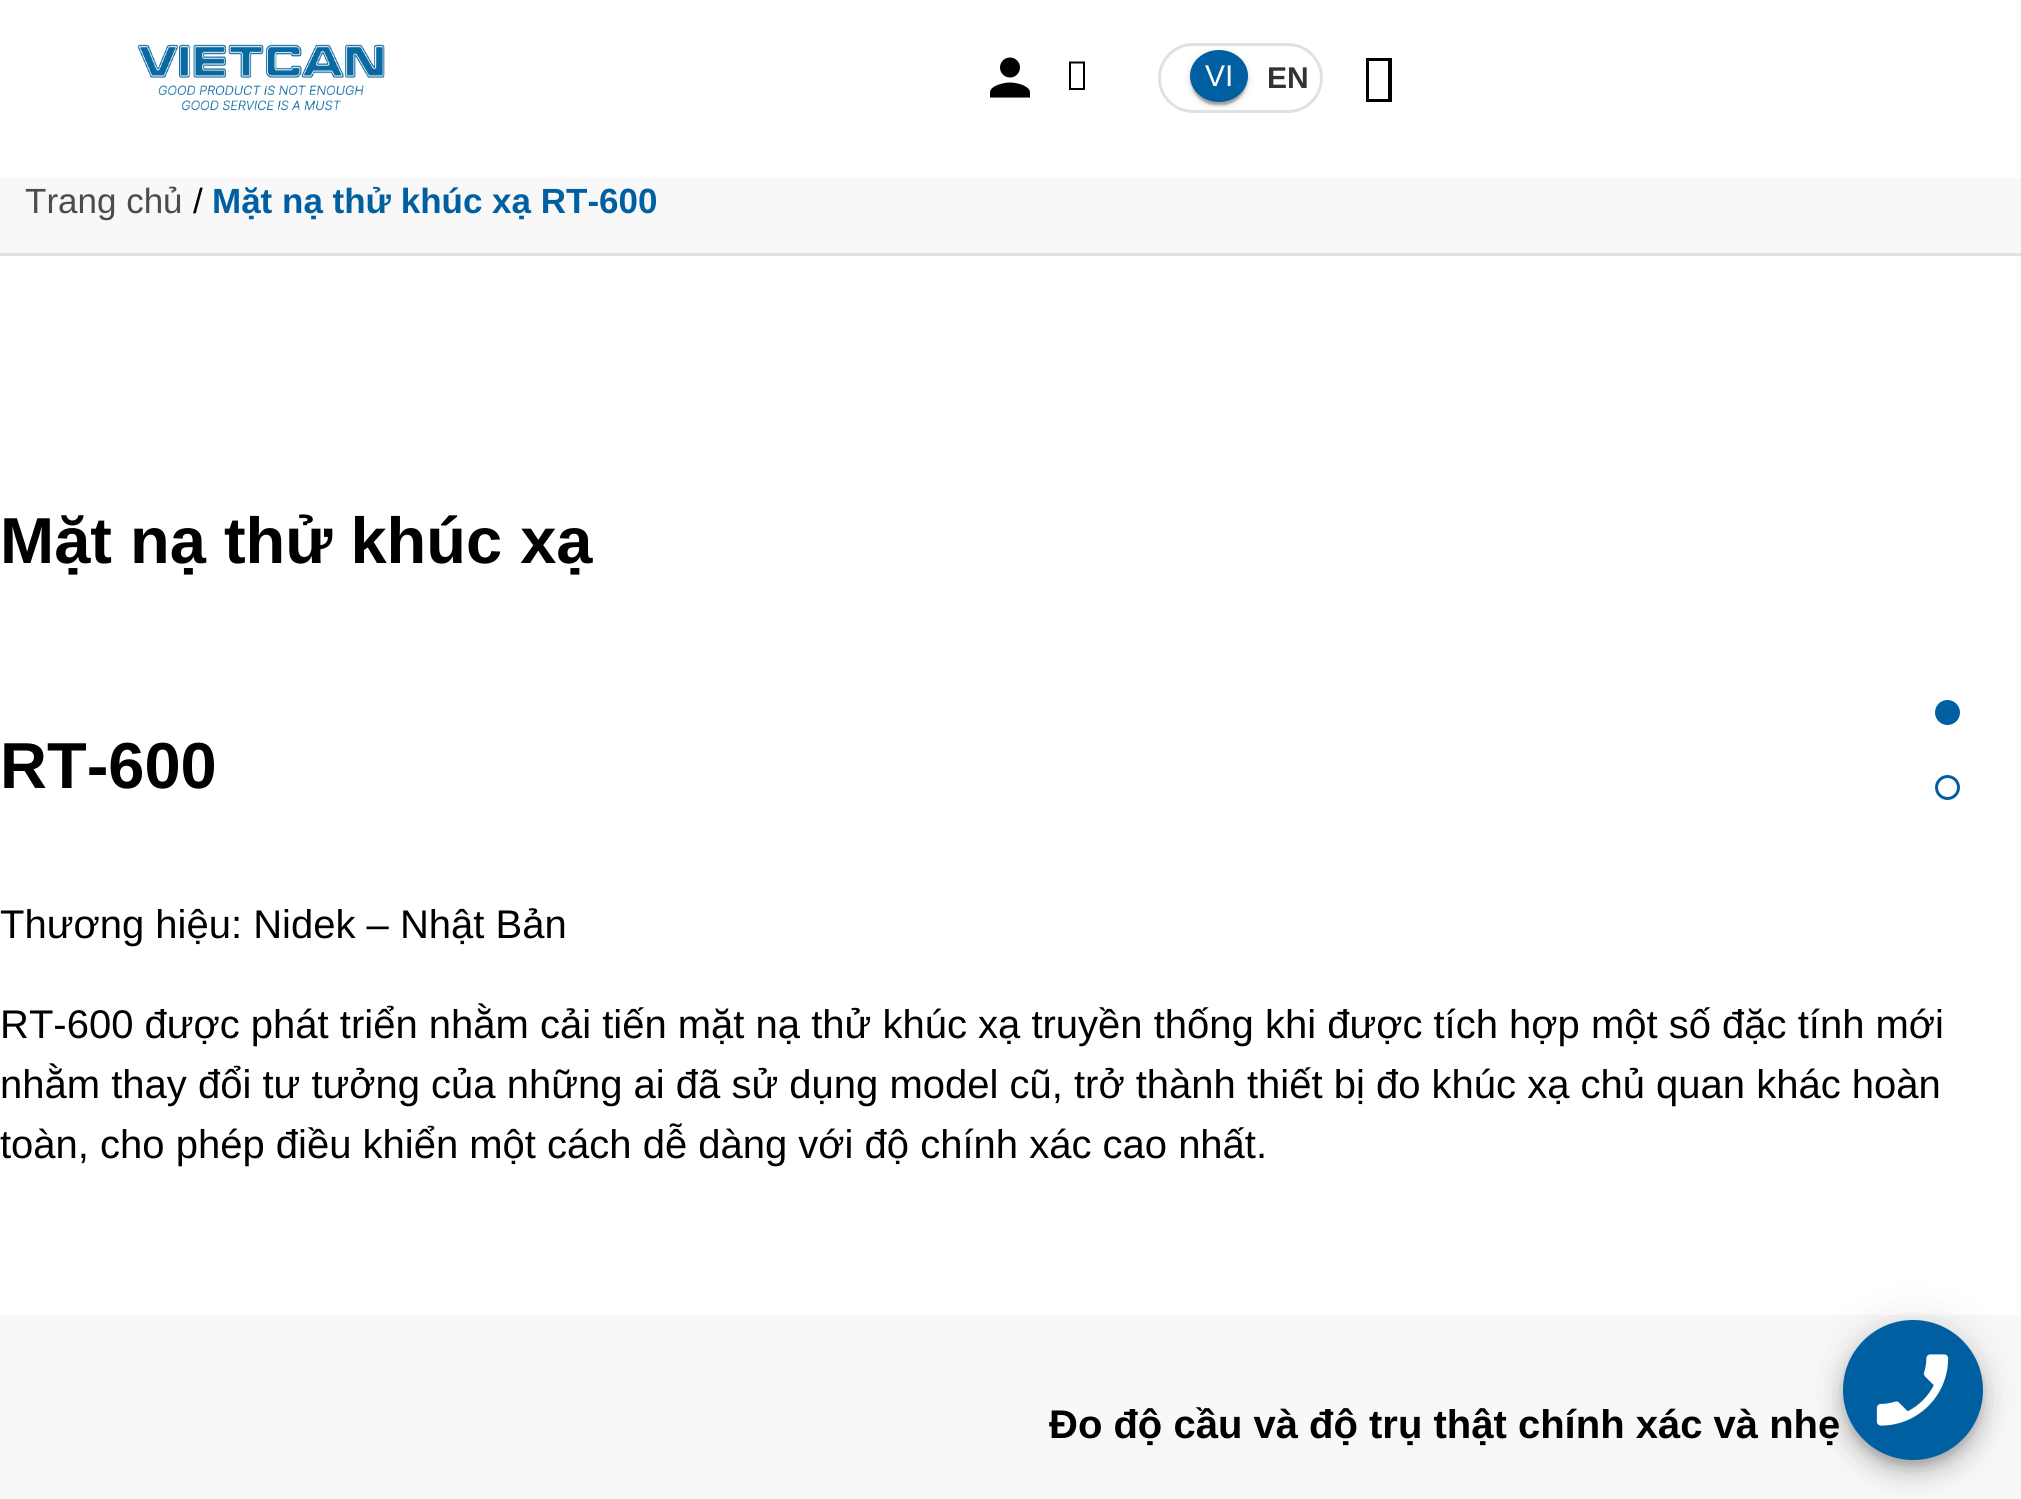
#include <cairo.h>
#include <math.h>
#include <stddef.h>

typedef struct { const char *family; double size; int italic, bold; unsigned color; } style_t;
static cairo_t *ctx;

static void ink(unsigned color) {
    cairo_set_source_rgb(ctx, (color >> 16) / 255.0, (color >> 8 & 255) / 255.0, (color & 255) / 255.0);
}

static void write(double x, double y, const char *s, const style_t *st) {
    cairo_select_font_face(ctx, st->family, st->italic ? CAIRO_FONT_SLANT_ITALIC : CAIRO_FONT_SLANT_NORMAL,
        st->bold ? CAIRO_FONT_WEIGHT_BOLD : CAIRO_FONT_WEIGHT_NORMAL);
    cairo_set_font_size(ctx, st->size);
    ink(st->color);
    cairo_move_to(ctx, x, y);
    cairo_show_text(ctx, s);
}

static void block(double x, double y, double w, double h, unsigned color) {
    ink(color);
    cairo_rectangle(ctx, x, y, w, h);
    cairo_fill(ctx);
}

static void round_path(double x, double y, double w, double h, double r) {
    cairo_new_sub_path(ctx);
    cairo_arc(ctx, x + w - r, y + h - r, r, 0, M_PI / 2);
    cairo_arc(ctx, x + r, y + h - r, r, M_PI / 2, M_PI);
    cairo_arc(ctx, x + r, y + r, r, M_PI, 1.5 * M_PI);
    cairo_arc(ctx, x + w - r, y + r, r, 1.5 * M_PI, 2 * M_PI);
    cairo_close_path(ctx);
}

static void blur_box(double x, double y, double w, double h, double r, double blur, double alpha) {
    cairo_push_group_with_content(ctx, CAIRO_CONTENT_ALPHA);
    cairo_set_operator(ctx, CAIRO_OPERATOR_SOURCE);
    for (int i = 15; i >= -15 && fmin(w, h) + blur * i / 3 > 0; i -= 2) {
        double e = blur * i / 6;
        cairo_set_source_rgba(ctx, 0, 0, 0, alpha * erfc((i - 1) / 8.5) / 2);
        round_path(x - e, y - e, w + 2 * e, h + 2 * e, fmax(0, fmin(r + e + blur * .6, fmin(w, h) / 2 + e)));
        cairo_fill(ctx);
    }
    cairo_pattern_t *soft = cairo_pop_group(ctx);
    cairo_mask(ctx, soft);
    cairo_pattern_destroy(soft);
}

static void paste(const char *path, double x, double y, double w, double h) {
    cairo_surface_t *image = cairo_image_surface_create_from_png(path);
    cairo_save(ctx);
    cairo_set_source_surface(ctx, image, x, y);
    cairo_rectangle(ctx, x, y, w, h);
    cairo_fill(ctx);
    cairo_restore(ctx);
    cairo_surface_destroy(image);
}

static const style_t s1 = {"Liberation Sans", 30, 0, 0, 0xffffff};
static const style_t s2 = {"Liberation Sans", 30, 0, 1, 0x333333};
static const style_t s3 = {"Liberation Sans", 35, 0, 0, 0x4c4c4c};
static const style_t s4 = {"Liberation Sans", 35, 0, 0, 0x000000};
static const style_t s5 = {"Liberation Sans", 35, 0, 1, 0x005fa1};
static const style_t s6 = {"Liberation Sans", 65, 0, 1, 0x000000};
static const style_t s7 = {"Liberation Sans", 40, 0, 0, 0x000000};
static const style_t s8 = {"Liberation Sans", 40, 0, 1, 0x000000};

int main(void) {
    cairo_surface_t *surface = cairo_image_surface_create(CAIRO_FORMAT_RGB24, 2021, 1499);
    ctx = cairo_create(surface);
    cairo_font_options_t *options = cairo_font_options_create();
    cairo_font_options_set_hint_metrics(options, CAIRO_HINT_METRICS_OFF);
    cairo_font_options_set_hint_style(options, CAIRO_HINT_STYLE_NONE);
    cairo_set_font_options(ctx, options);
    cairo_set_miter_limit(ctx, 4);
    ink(0xffffff);
    cairo_paint(ctx);
    paste("pic1.png", 137, 44, 248, 67);
    paste("pic2.png", 990, 57, 40, 41);
    ink(0x000000);
    cairo_new_path(ctx);
    cairo_move_to(ctx, 1069, 90);
    cairo_line_to(ctx, 1069, 61.5);
    cairo_line_to(ctx, 1085, 61.5);
    cairo_line_to(ctx, 1085, 90);
    cairo_close_path(ctx);
    cairo_move_to(ctx, 1071, 88);
    cairo_line_to(ctx, 1083, 88);
    cairo_line_to(ctx, 1083, 63.5);
    cairo_line_to(ctx, 1071, 63.5);
    cairo_close_path(ctx);
    cairo_fill(ctx);
    round_path(1159.5, 44.5, 162, 67, 33.5);
    ink(0xe1e1e1);
    cairo_set_line_width(ctx, 3);
    cairo_stroke(ctx);
    ink(0x000000);
    blur_box(1190, 53, 58, 52, 26, 4, 0.12);
    blur_box(1190, 53, 58, 52, 26, 1, 0.14);
    blur_box(1193, 58, 52, 47, 23.5, 1, 0.2);
    ink(0x005fa1);
    cairo_new_path(ctx);
    cairo_move_to(ctx, 1219, 50);
    cairo_curve_to(ctx, 1235, 50, 1248, 61.5, 1248, 76);
    cairo_curve_to(ctx, 1248, 90.5, 1235, 102, 1219, 102);
    cairo_curve_to(ctx, 1203, 102, 1190, 90.5, 1190, 76);
    cairo_curve_to(ctx, 1190, 61.5, 1203, 50, 1219, 50);
    cairo_close_path(ctx);
    cairo_fill(ctx);
    write(1205, 86, "VI", &s1);
    write(1267, 88, "EN", &s2);
    ink(0x000000);
    cairo_new_path(ctx);
    cairo_move_to(ctx, 1366, 102);
    cairo_line_to(ctx, 1366, 58);
    cairo_line_to(ctx, 1392, 58);
    cairo_line_to(ctx, 1392, 102);
    cairo_close_path(ctx);
    cairo_move_to(ctx, 1369, 99);
    cairo_line_to(ctx, 1388, 99);
    cairo_line_to(ctx, 1388, 61);
    cairo_line_to(ctx, 1369, 61);
    cairo_close_path(ctx);
    cairo_fill(ctx);
    block(0, 178, 2021, 75, 0xf8f8f8);
    block(0, 253, 2021, 3, 0xe1e1e1);
    write(25, 213, "Trang chủ", &s3);
    write(193, 213, "/", &s4);
    write(212, 213, "Mặt nạ thử khúc xạ RT-600", &s5);
    write(0, 563, "Mặt nạ thử khúc xạ", &s6);
    write(0, 788, "RT-600", &s6);
    write(0, 938, "Thương hiệu: Nidek – Nhật Bản", &s7);
    write(0, 1038, "RT-600 được phát triển nhằm cải tiến mặt nạ thử khúc xạ truyền thống khi được tích hợp một số đặc tính mới", &s7);
    write(0, 1098, "nhằm thay đổi tư tưởng của những ai đã sử dụng model cũ, trở thành thiết bị đo khúc xạ chủ quan khác hoàn", &s7);
    write(0, 1158, "toàn, cho phép điều khiển một cách dễ dàng với độ chính xác cao nhất.", &s7);
    block(0, 1315, 2021, 184, 0xf8f8f8);
    write(1049, 1438, "Đo độ cầu và độ trụ thật chính xác và nhẹ", &s8);
    ink(0x005fa1);
    cairo_new_path(ctx);
    cairo_arc(ctx, 1947.5, 712.5, 11, 0, 2 * M_PI);
    cairo_fill_preserve(ctx);
    cairo_stroke(ctx);
    cairo_arc(ctx, 1947.5, 787.5, 11, 0, 2 * M_PI);
    cairo_stroke(ctx);
    ink(0x000000);
    blur_box(1843, 1323, 140, 140, 70, 22.5, 0.12);
    blur_box(1843, 1335, 140, 140, 70, 12.5, 0.14);
    blur_box(1845, 1330, 135, 135, 67.5, 6, 0.2);
    ink(0x005fa1);
    cairo_arc(ctx, 1913, 1390, 70, 0, 2 * M_PI);
    cairo_fill(ctx);
    paste("pic3.png", 1876, 1354, 73, 72);
    cairo_surface_write_to_png(surface, "screenshot.png");
    cairo_font_options_destroy(options);
    cairo_destroy(ctx);
    cairo_surface_destroy(surface);
    return 0;
}
